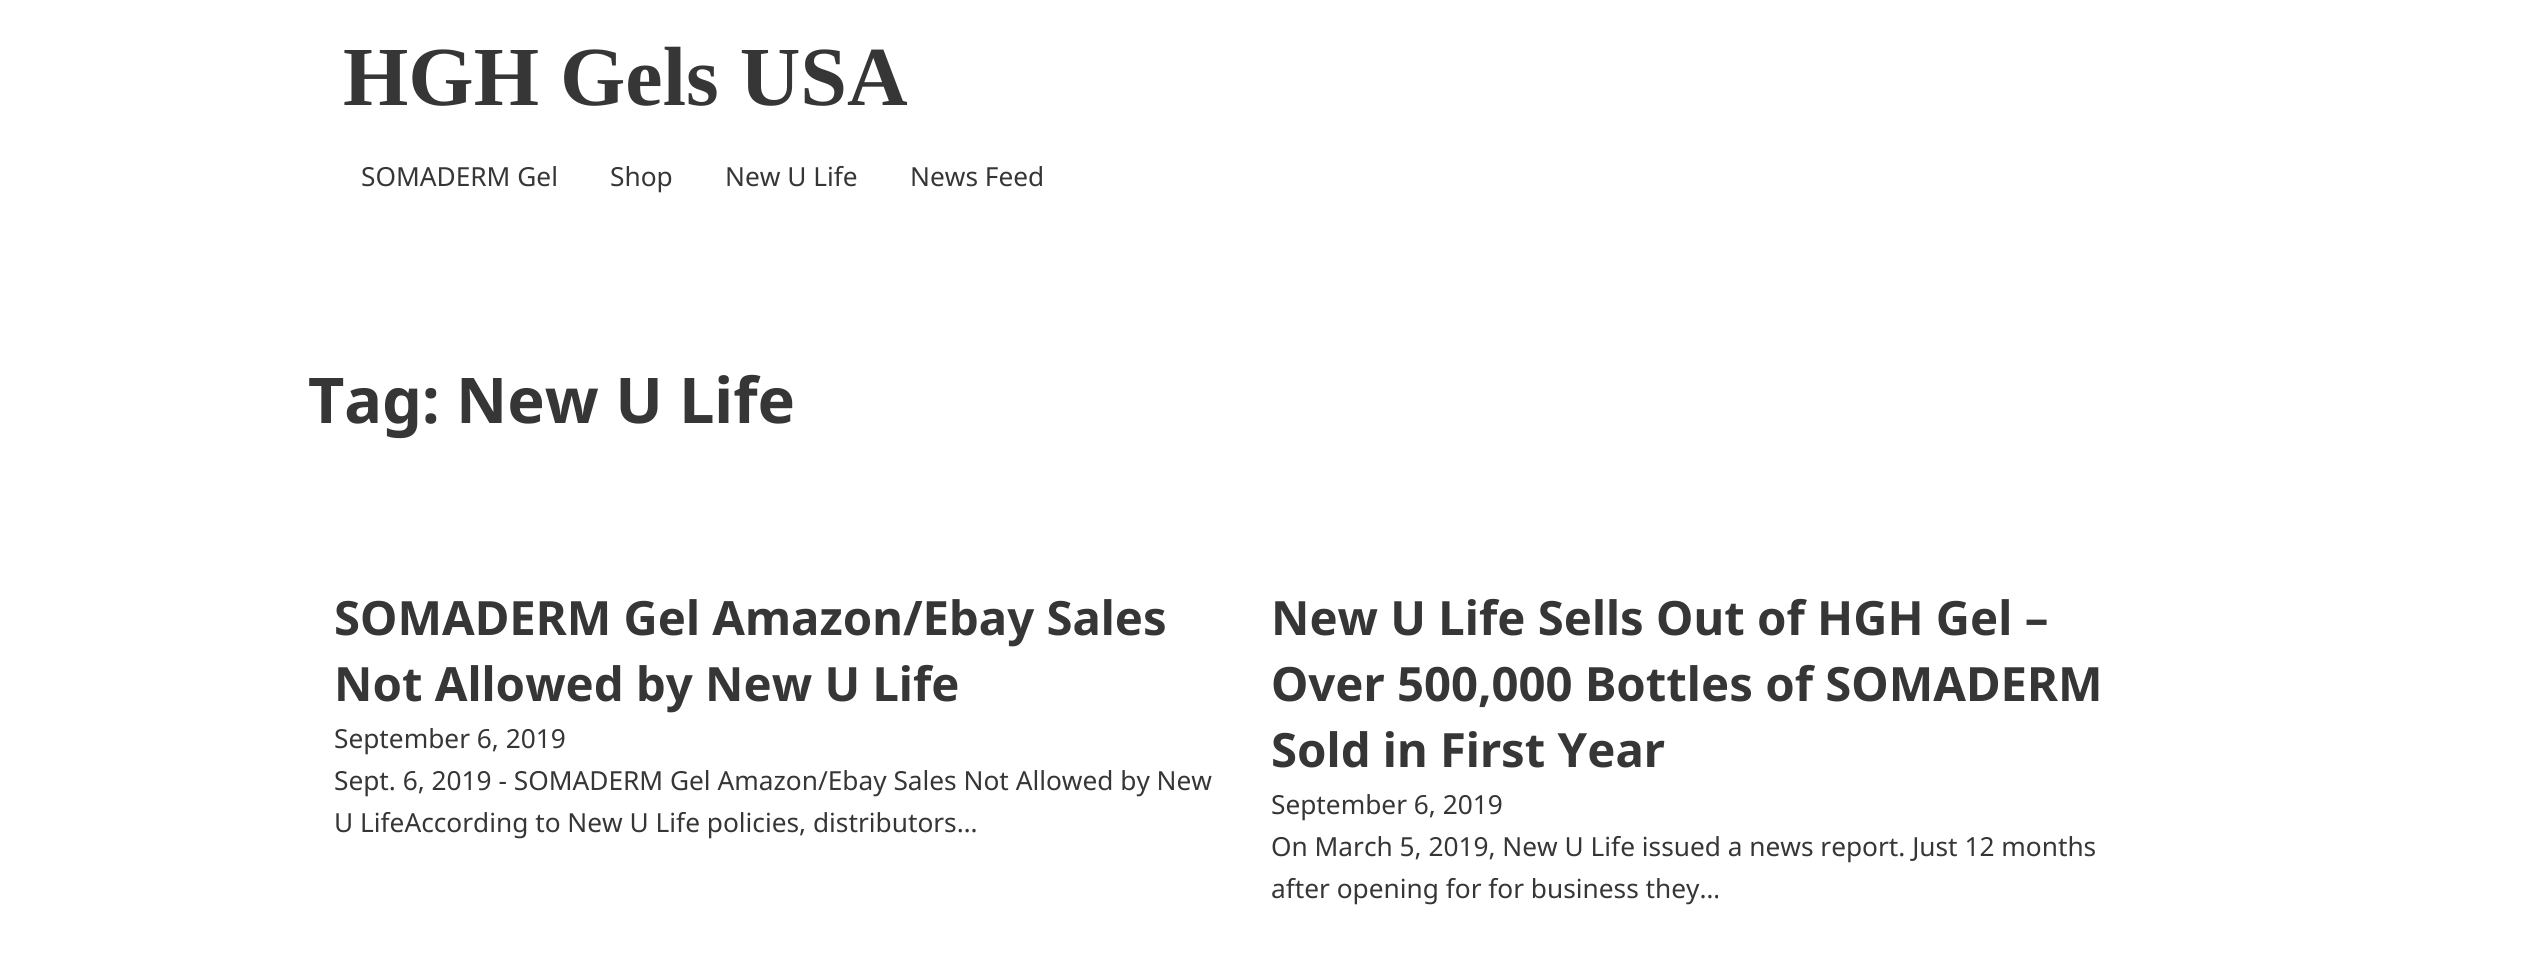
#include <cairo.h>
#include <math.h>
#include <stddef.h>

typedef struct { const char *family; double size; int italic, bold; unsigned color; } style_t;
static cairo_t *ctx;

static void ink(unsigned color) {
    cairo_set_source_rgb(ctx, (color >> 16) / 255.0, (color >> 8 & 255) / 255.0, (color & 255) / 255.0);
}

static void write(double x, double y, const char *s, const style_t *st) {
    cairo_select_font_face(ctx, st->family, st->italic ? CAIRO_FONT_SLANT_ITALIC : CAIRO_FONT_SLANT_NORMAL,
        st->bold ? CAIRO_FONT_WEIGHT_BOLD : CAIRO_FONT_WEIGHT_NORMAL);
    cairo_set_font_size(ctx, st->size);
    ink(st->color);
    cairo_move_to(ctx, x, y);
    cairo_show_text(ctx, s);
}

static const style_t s1 = {"Liberation Serif", 84, 0, 1, 0x363636};
static const style_t s2 = {"Noto Sans", 26.25, 0, 0, 0x363636};
static const style_t s3 = {"Noto Sans", 63, 0, 1, 0x363636};
static const style_t s4 = {"Noto Sans", 47.25, 0, 1, 0x363636};

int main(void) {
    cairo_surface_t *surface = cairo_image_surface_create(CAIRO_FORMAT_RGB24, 2541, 968);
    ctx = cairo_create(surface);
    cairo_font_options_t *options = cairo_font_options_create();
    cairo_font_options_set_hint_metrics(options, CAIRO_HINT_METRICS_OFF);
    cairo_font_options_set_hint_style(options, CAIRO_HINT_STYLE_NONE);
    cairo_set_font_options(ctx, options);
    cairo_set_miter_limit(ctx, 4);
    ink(0xffffff);
    cairo_paint(ctx);
    write(343, 105, "HGH Gels USA", &s1);
    write(361, 186, "SOMADERM Gel", &s2);
    write(610, 186, "Shop", &s2);
    write(725, 186, "New U Life", &s2);
    write(910, 186, "News Feed", &s2);
    write(308, 423, "Tag: New U Life", &s3);
    write(334, 635, "SOMADERM Gel Amazon/Ebay Sales", &s4);
    write(334, 701, "Not Allowed by New U Life", &s4);
    write(334, 748, "September 6, 2019", &s2);
    write(334, 790, "Sept. 6, 2019 - SOMADERM Gel Amazon/Ebay Sales Not Allowed by New", &s2);
    write(334, 832, "U LifeAccording to New U Life policies, distributors…", &s2);
    write(1271, 635, "New U Life Sells Out of HGH Gel –", &s4);
    write(1271, 701, "Over 500,000 Bottles of SOMADERM", &s4);
    write(1271, 767, "Sold in First Year", &s4);
    write(1271, 814, "September 6, 2019", &s2);
    write(1271, 856, "On March 5, 2019, New U Life issued a news report. Just 12 months", &s2);
    write(1271, 898, "after opening for for business they…", &s2);
    cairo_surface_write_to_png(surface, "screenshot.png");
    cairo_font_options_destroy(options);
    cairo_destroy(ctx);
    cairo_surface_destroy(surface);
    return 0;
}
